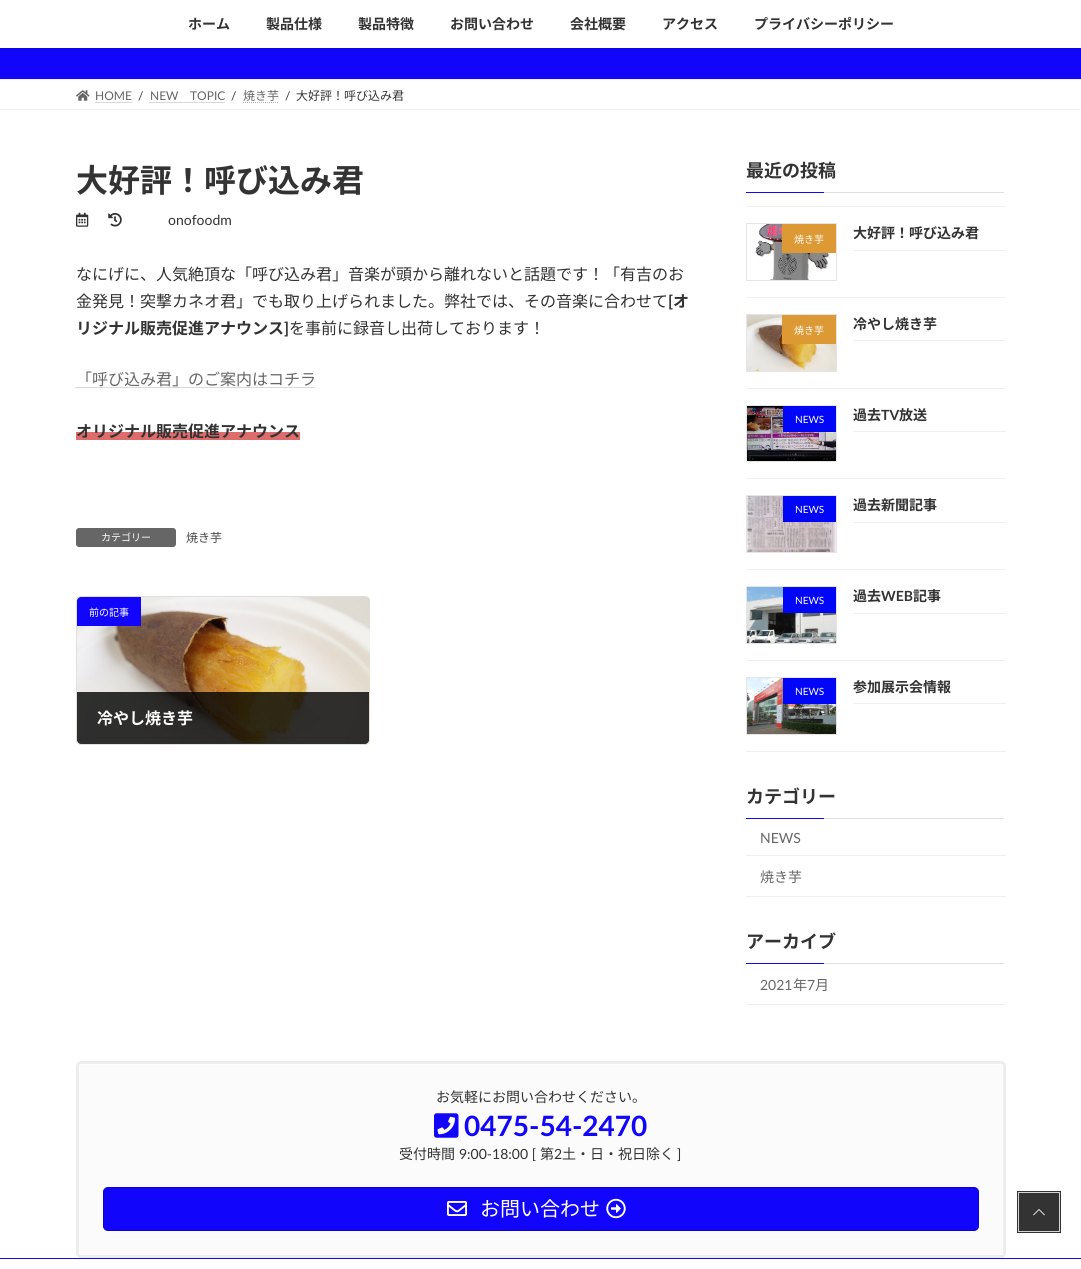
#include <cairo.h>
#include <math.h>
#include <stddef.h>

typedef struct { const char *family; double size; int italic, bold; unsigned color; } style_t;
static cairo_t *ctx;

static void ink(unsigned color) {
    cairo_set_source_rgb(ctx, (color >> 16) / 255.0, (color >> 8 & 255) / 255.0, (color & 255) / 255.0);
}

static void write(double x, double y, const char *s, const style_t *st) {
    cairo_select_font_face(ctx, st->family, st->italic ? CAIRO_FONT_SLANT_ITALIC : CAIRO_FONT_SLANT_NORMAL,
        st->bold ? CAIRO_FONT_WEIGHT_BOLD : CAIRO_FONT_WEIGHT_NORMAL);
    cairo_set_font_size(ctx, st->size);
    ink(st->color);
    cairo_move_to(ctx, x, y);
    cairo_show_text(ctx, s);
}

static void block(double x, double y, double w, double h, unsigned color) {
    ink(color);
    cairo_rectangle(ctx, x, y, w, h);
    cairo_fill(ctx);
}

static void round_path(double x, double y, double w, double h, double r) {
    cairo_new_sub_path(ctx);
    cairo_arc(ctx, x + w - r, y + h - r, r, 0, M_PI / 2);
    cairo_arc(ctx, x + r, y + h - r, r, M_PI / 2, M_PI);
    cairo_arc(ctx, x + r, y + r, r, M_PI, 1.5 * M_PI);
    cairo_arc(ctx, x + w - r, y + r, r, 1.5 * M_PI, 2 * M_PI);
    cairo_close_path(ctx);
}

static void blur_box(double x, double y, double w, double h, double r, double blur, double alpha) {
    cairo_push_group_with_content(ctx, CAIRO_CONTENT_ALPHA);
    cairo_set_operator(ctx, CAIRO_OPERATOR_SOURCE);
    for (int i = 15; i >= -15 && fmin(w, h) + blur * i / 3 > 0; i -= 2) {
        double e = blur * i / 6;
        cairo_set_source_rgba(ctx, 0, 0, 0, alpha * erfc((i - 1) / 8.5) / 2);
        round_path(x - e, y - e, w + 2 * e, h + 2 * e, fmax(0, fmin(r + e + blur * .6, fmin(w, h) / 2 + e)));
        cairo_fill(ctx);
    }
    cairo_pattern_t *soft = cairo_pop_group(ctx);
    cairo_mask(ctx, soft);
    cairo_pattern_destroy(soft);
}

static void paste(const char *path, double x, double y, double w, double h) {
    cairo_surface_t *image = cairo_image_surface_create_from_png(path);
    cairo_save(ctx);
    cairo_set_source_surface(ctx, image, x, y);
    cairo_rectangle(ctx, x, y, w, h);
    cairo_fill(ctx);
    cairo_restore(ctx);
    cairo_surface_destroy(image);
}

static const style_t s1 = {"Noto Sans JP", 14, 0, 1, 0x333333};
static const style_t s2 = {"Lato", 12, 0, 0, 0x666666};
static const style_t s3 = {"Lato", 12, 0, 0, 0x333333};
static const style_t s4 = {"Noto Sans JP", 12, 0, 0, 0x666666};
static const style_t s5 = {"Noto Sans JP", 12, 0, 0, 0x333333};
static const style_t s6 = {"Noto Sans JP", 32, 0, 1, 0x333333};
static const style_t s7 = {"Lato", 14, 0, 0, 0x333333};
static const style_t s8 = {"Noto Sans JP", 16, 0, 0, 0x333333};
static const style_t s9 = {"Lato", 16, 0, 1, 0x333333};
static const style_t s10 = {"Noto Sans JP", 16, 0, 1, 0x333333};
static const style_t s11 = {"Noto Sans JP", 16, 0, 0, 0x666666};
static const style_t s12 = {"Noto Sans JP", 10, 0, 0, 0xffffff};
static const style_t s13 = {"Noto Sans JP", 12, 0, 0, 0x464646};
static const style_t s14 = {"Noto Sans JP", 16, 0, 1, 0xffffff};
static const style_t s15 = {"Noto Sans JP", 18, 0, 1, 0x333333};
static const style_t s16 = {"Lato", 10, 0, 0, 0xffffff};
static const style_t s17 = {"Lato", 14, 0, 1, 0x333333};
static const style_t s18 = {"Lato", 14, 0, 0, 0x666666};
static const style_t s19 = {"Noto Sans JP", 14, 0, 0, 0x666666};
static const style_t s20 = {"Noto Sans JP", 14, 0, 0, 0x333333};
static const style_t s21 = {"Lato", 28, 0, 1, 0x1105fc};
static const style_t s22 = {"Noto Sans JP", 20, 0, 0, 0xffffff};

int main(void) {
    cairo_surface_t *surface = cairo_image_surface_create(CAIRO_FORMAT_RGB24, 1081, 1269);
    ctx = cairo_create(surface);
    cairo_font_options_t *options = cairo_font_options_create();
    cairo_font_options_set_hint_metrics(options, CAIRO_HINT_METRICS_OFF);
    cairo_font_options_set_hint_style(options, CAIRO_HINT_STYLE_NONE);
    cairo_set_font_options(ctx, options);
    cairo_set_miter_limit(ctx, 4);
    ink(0xffffff);
    cairo_paint(ctx);
    block(0, 48, 1081, 31, 0x1105fc);
    ink(0x000000);
    blur_box(0, 1, 1081, 48, 0, 1.5, 0.1);
    block(0, 0, 1081, 48, 0xffffff);
    write(188, 29, "ホーム", &s1);
    write(266, 29, "製品仕様", &s1);
    write(358, 29, "製品特徴", &s1);
    write(450, 29, "お問い合わせ", &s1);
    write(570, 29, "会社概要", &s1);
    write(662, 29, "アクセス", &s1);
    write(754, 29, "プライバシーポリシー", &s1);
    block(0, 79, 1081, 1, 0xf0f0f0);
    block(0, 109, 1081, 1, 0xf0f0f0);
    paste("pic1.png", 76, 90, 14, 11);
    write(95, 100, "HOME", &s2);
    cairo_new_path(ctx);
    cairo_move_to(ctx, 95.5, 102.5);
    cairo_line_to(ctx, 132, 102.5);
    ink(0xb3b3b3);
    cairo_set_line_width(ctx, 1);
    cairo_set_dash(ctx, (double[]){1, 1}, 2, 0);
    cairo_stroke(ctx);
    write(138, 100, "/", &s3);
    write(150, 100, "NEW", &s2);
    write(190, 100, "TOPIC", &s2);
    cairo_new_path(ctx);
    cairo_move_to(ctx, 149.5, 102.5);
    cairo_line_to(ctx, 225.5, 102.5);
    ink(0xb3b3b3);
    cairo_stroke(ctx);
    write(231, 100, "/", &s3);
    write(243, 100, "焼き芋", &s4);
    cairo_new_path(ctx);
    cairo_move_to(ctx, 243, 102.5);
    cairo_line_to(ctx, 279, 102.5);
    ink(0xb3b3b3);
    cairo_stroke(ctx);
    write(285, 100, "/", &s3);
    write(296, 100, "大好評！呼び込み君", &s5);
    write(76, 192, "大好評！呼び込み君", &s6);
    paste("pic2.png", 76, 212, 13, 15);
    paste("pic3.png", 108, 213, 14, 14);
    write(168, 225, "onofoodm", &s7);
    write(76, 280, "なにげに、人気絶頂な「呼び込み君」音楽が頭から離れないと話題です！「有吉のお", &s8);
    write(76, 307, "金発見！突撃カネオ君」でも取り上げられました。弊社では、その音楽に合わせて", &s8);
    write(668, 307, "[", &s9);
    write(673, 307, "オ", &s10);
    write(76, 334, "リジナル販売促進アナウンス", &s10);
    write(284, 334, "]", &s9);
    write(289, 334, "を事前に録音し出荷しております！", &s8);
    write(76, 385, "「呼び込み君」のご案内はコチラ", &s11);
    cairo_new_path(ctx);
    cairo_move_to(ctx, 75.5, 387.5);
    cairo_line_to(ctx, 315.5, 387.5);
    ink(0xb3b3b3);
    cairo_stroke(ctx);
    block(76, 432, 224, 8, 0xdd6d6d);
    write(76, 437, "オリジナル販売促進アナウンス", &s10);
    ink(0x666666);
    round_path(76, 528, 100, 19, 3);
    cairo_fill(ctx);
    write(101, 541, "カテゴリー", &s12);
    write(186, 542, "焼き芋", &s13);
    round_path(76.5, 596.5, 293, 148, 4.5);
    ink(0xdfdfdf);
    cairo_set_dash(ctx, NULL, 0, 0);
    cairo_stroke(ctx);
    paste("pic4.png", 77, 597, 293, 147);
    cairo_save(ctx);
    round_path(77, 597, 292, 147, 4);
    cairo_clip(ctx);
    block(77, 743, 292, 1, 0xe5e5e5);
    cairo_restore(ctx);
    ink(0x1105fc);
    cairo_new_path(ctx);
    cairo_move_to(ctx, 81, 597);
    cairo_line_to(ctx, 141, 597);
    cairo_line_to(ctx, 141, 626);
    cairo_line_to(ctx, 77, 626);
    cairo_line_to(ctx, 77, 601);
    cairo_curve_to(ctx, 77, 599, 79, 597, 81, 597);
    cairo_close_path(ctx);
    cairo_fill(ctx);
    write(89, 616, "前の記事", &s12);
    cairo_set_source_rgba(ctx, 0, 0, 0, 0.8);
    cairo_new_path(ctx);
    cairo_move_to(ctx, 77, 692);
    cairo_line_to(ctx, 369, 692);
    cairo_line_to(ctx, 369, 740);
    cairo_curve_to(ctx, 369, 742, 367, 744, 365, 744);
    cairo_line_to(ctx, 81, 744);
    cairo_curve_to(ctx, 79, 744, 77, 742, 77, 740);
    cairo_close_path(ctx);
    cairo_fill(ctx);
    cairo_set_source_rgba(ctx, 0, 0, 0, 0.06);
    cairo_rectangle(ctx, 97, 737, 252, 1);
    cairo_fill(ctx);
    write(97, 724, "冷やし焼き芋", &s14);
    block(824, 192, 180, 1, 0xe0e0e0);
    write(746, 177, "最近の投稿", &s15);
    block(746, 192, 78, 1, 0x1105fc);
    block(746, 206, 260, 1, 0xf0f0f0);
    block(746, 297, 260, 1, 0xf0f0f0);
    paste("pic5.png", 755, 224, 75, 56);
    cairo_rectangle(ctx, 746.5, 223.5, 90, 57);
    ink(0xe5e5e5);
    cairo_stroke(ctx);
    block(782, 224, 54, 29, 0xdd9933);
    write(794, 243, "焼き芋", &s12);
    block(853, 250, 153, 1, 0xf0f0f0);
    write(853, 238, "大好評！呼び込み君", &s1);
    block(746, 388, 260, 1, 0xf0f0f0);
    paste("pic6.png", 747, 315, 89, 56);
    cairo_rectangle(ctx, 746.5, 314.5, 90, 57);
    ink(0xe5e5e5);
    cairo_stroke(ctx);
    block(782, 315, 54, 29, 0xdd9933);
    write(794, 334, "焼き芋", &s12);
    block(853, 340, 153, 1, 0xf0f0f0);
    write(853, 329, "冷やし焼き芋", &s1);
    block(746, 478, 260, 1, 0xf0f0f0);
    paste("pic7.png", 747, 406, 89, 55);
    cairo_rectangle(ctx, 746.5, 405.5, 90, 56);
    ink(0xe5e5e5);
    cairo_stroke(ctx);
    block(783, 406, 53, 26, 0x0206f7);
    write(795, 423, "NEWS", &s16);
    block(853, 431, 153, 1, 0xf0f0f0);
    write(853, 420, "過去", &s1);
    write(881, 420, "TV", &s17);
    write(899, 420, "放送", &s1);
    block(746, 569, 260, 1, 0xf0f0f0);
    paste("pic8.png", 747, 496, 89, 56);
    cairo_rectangle(ctx, 746.5, 495.5, 90, 57);
    ink(0xe5e5e5);
    cairo_stroke(ctx);
    block(783, 496, 53, 26, 0x0206f7);
    write(795, 513, "NEWS", &s16);
    block(853, 522, 153, 1, 0xf0f0f0);
    write(853, 510, "過去新聞記事", &s1);
    block(746, 660, 260, 1, 0xf0f0f0);
    paste("pic9.png", 747, 587, 89, 56);
    cairo_rectangle(ctx, 746.5, 586.5, 90, 57);
    ink(0xe5e5e5);
    cairo_stroke(ctx);
    block(783, 587, 53, 26, 0x0206f7);
    write(795, 604, "NEWS", &s16);
    block(853, 613, 153, 1, 0xf0f0f0);
    write(853, 601, "過去", &s1);
    write(881, 601, "WEB", &s17);
    write(913, 601, "記事", &s1);
    block(746, 751, 260, 1, 0xf0f0f0);
    paste("pic10.png", 747, 678, 89, 56);
    cairo_rectangle(ctx, 746.5, 677.5, 90, 57);
    ink(0xe5e5e5);
    cairo_stroke(ctx);
    block(783, 678, 53, 26, 0x0206f7);
    write(795, 695, "NEWS", &s16);
    block(853, 703, 153, 1, 0xf0f0f0);
    write(853, 692, "参加展示会情報", &s1);
    block(824, 818, 180, 1, 0xe0e0e0);
    write(746, 803, "カテゴリー", &s15);
    block(746, 818, 78, 1, 0x1105fc);
    block(746, 855, 260, 1, 0xf0f0f0);
    write(760, 843, "NEWS", &s18);
    block(746, 896, 260, 1, 0xf0f0f0);
    write(760, 882, "焼き芋", &s19);
    block(824, 963, 180, 1, 0xe0e0e0);
    write(746, 948, "アーカイブ", &s15);
    block(746, 963, 78, 1, 0x1105fc);
    block(746, 1004, 260, 1, 0xf0f0f0);
    write(760, 990, "2021", &s18);
    write(793, 990, "年", &s19);
    write(807, 990, "7", &s18);
    write(815, 990, "月", &s19);
    round_path(77.5, 1062.5, 927, 194, 3.5);
    ink(0xededed);
    cairo_set_line_width(ctx, 3);
    cairo_stroke(ctx);
    ink(0xfbfbfb);
    round_path(79, 1064, 924, 191, 2);
    cairo_fill(ctx);
    ink(0xfefefe);
    cairo_set_fill_rule(ctx, CAIRO_FILL_RULE_EVEN_ODD);
    cairo_new_path(ctx);
    cairo_move_to(ctx, 81, 1064);
    cairo_curve_to(ctx, 80, 1064, 79, 1065, 79, 1066);
    cairo_line_to(ctx, 79, 1253);
    cairo_curve_to(ctx, 79, 1254, 80, 1255, 81, 1255);
    cairo_line_to(ctx, 1001, 1255);
    cairo_curve_to(ctx, 1002, 1255, 1003, 1254, 1003, 1253);
    cairo_line_to(ctx, 1003, 1066);
    cairo_curve_to(ctx, 1003, 1065, 1002, 1064, 1001, 1064);
    cairo_close_path(ctx);
    cairo_move_to(ctx, 80, 1065);
    cairo_line_to(ctx, 80, 1254);
    cairo_line_to(ctx, 1002, 1254);
    cairo_line_to(ctx, 1002, 1065);
    cairo_close_path(ctx);
    cairo_fill(ctx);
    write(436, 1102, "お気軽にお問い合わせください。", &s20);
    paste("pic11.png", 434, 1113, 25, 25);
    write(464, 1136, "0475-54-2470", &s21);
    write(399, 1159, "受付時間", &s20);
    write(459, 1159, "9:00-18:00 [", &s7);
    write(540, 1159, "第", &s20);
    write(554, 1159, "2", &s7);
    write(562, 1159, "土・日・祝日除く", &s20);
    write(677, 1159, "]", &s7);
    ink(0x1105fc);
    round_path(103.5, 1187.5, 875, 43, 4.5);
    cairo_fill_preserve(ctx);
    ink(0x0d04c9);
    cairo_set_line_width(ctx, 1);
    cairo_stroke(ctx);
    paste("pic12.png", 447, 1201, 20, 15);
    write(480, 1216, "お問い合わせ", &s22);
    paste("pic13.png", 606, 1198, 20, 21);
    cairo_rectangle(ctx, 1018, 1192, 42, 40);
    ink(0x333333);
    cairo_set_line_width(ctx, 2);
    cairo_stroke(ctx);
    cairo_rectangle(ctx, 1018.5, 1192.5, 41, 39);
    ink(0xd6d6d6);
    cairo_set_line_width(ctx, 1);
    cairo_stroke(ctx);
    block(1019, 1193, 40, 38, 0x333333);
    paste("pic14.png", 1033, 1209, 12, 7);
    block(0, 1258, 1081, 1, 0x1105fc);
    cairo_surface_write_to_png(surface, "screenshot.png");
    cairo_font_options_destroy(options);
    cairo_destroy(ctx);
    cairo_surface_destroy(surface);
    return 0;
}
